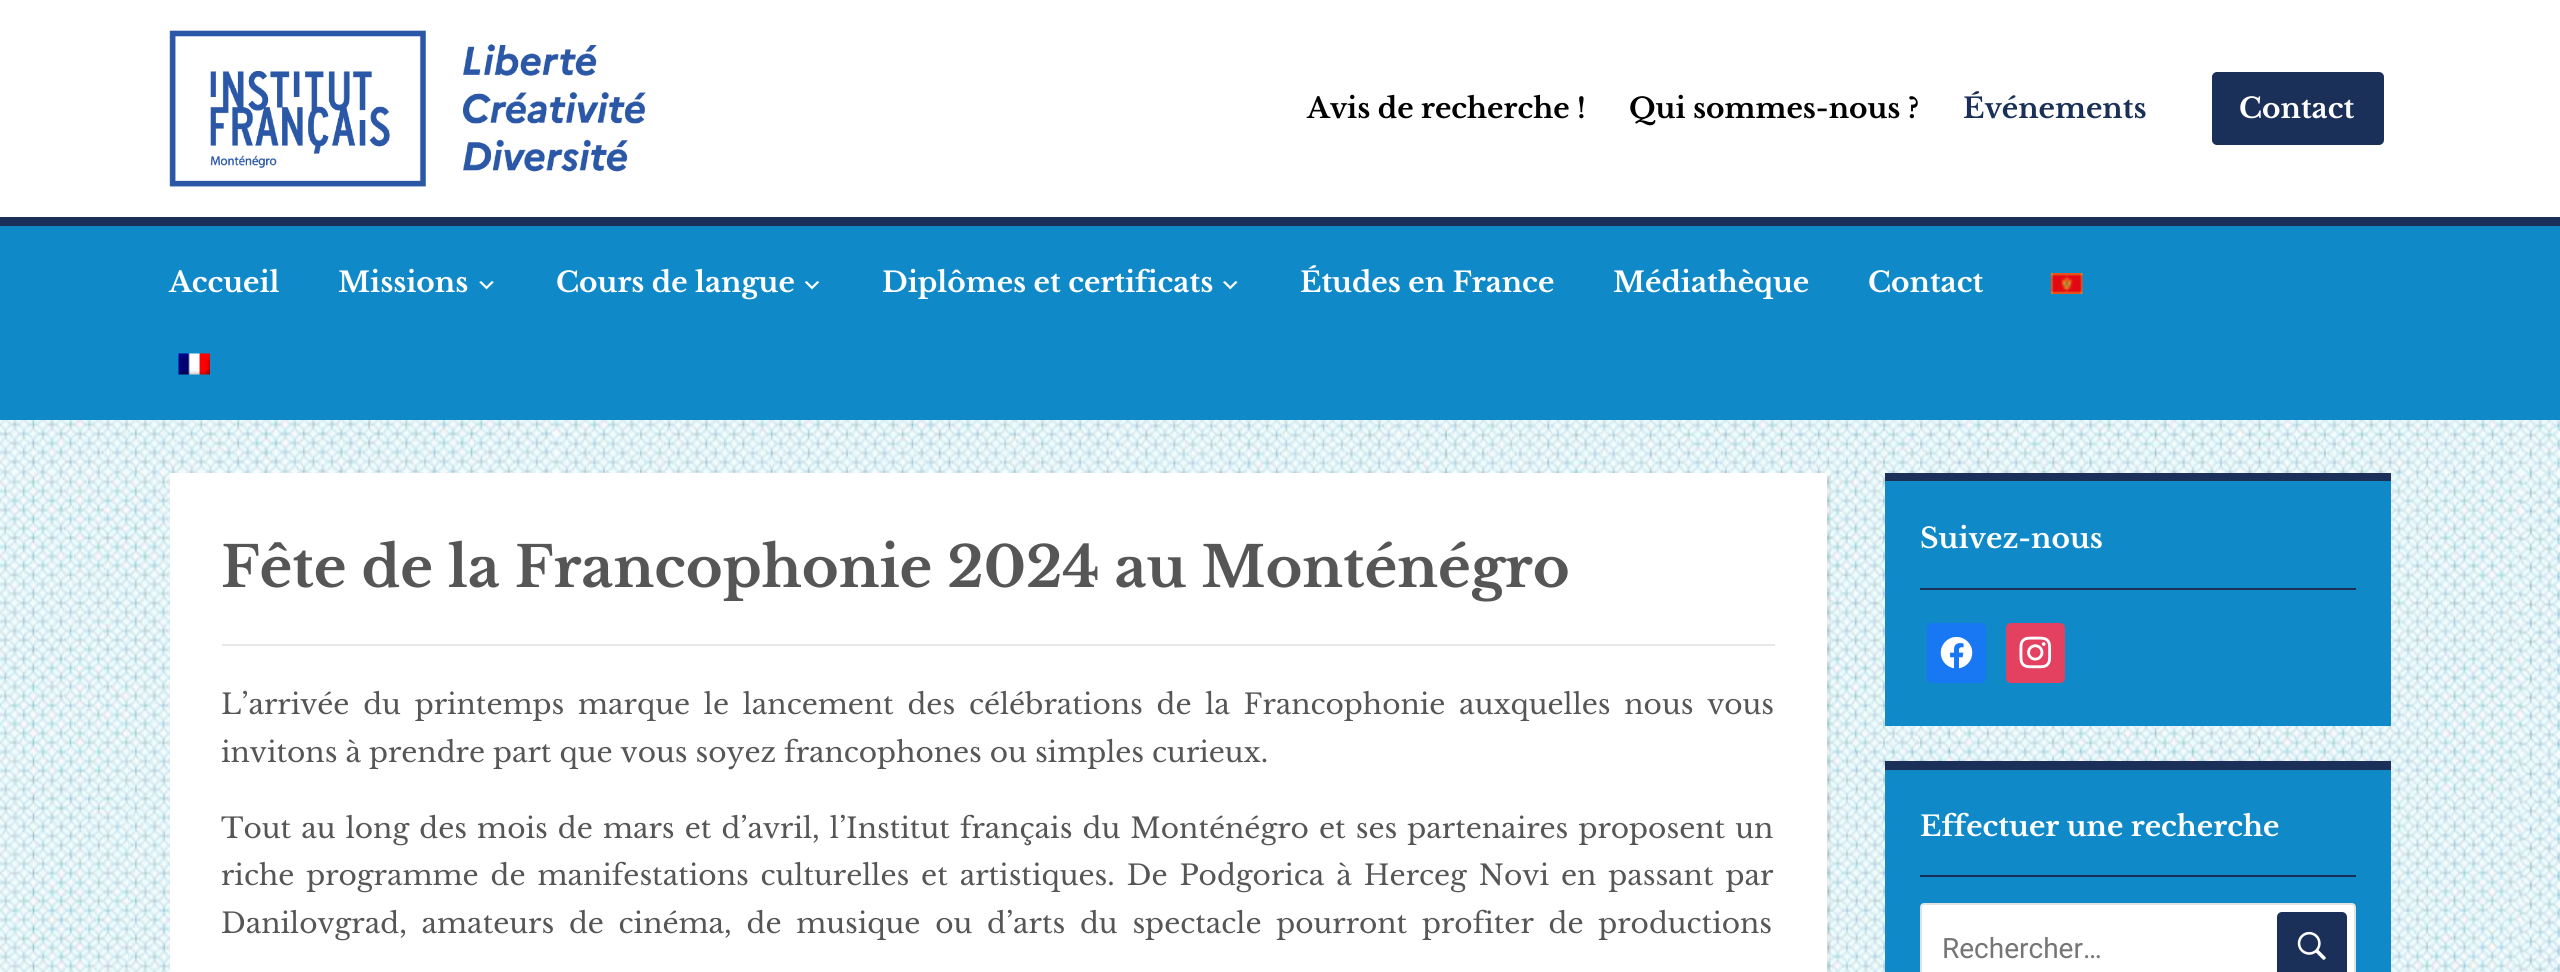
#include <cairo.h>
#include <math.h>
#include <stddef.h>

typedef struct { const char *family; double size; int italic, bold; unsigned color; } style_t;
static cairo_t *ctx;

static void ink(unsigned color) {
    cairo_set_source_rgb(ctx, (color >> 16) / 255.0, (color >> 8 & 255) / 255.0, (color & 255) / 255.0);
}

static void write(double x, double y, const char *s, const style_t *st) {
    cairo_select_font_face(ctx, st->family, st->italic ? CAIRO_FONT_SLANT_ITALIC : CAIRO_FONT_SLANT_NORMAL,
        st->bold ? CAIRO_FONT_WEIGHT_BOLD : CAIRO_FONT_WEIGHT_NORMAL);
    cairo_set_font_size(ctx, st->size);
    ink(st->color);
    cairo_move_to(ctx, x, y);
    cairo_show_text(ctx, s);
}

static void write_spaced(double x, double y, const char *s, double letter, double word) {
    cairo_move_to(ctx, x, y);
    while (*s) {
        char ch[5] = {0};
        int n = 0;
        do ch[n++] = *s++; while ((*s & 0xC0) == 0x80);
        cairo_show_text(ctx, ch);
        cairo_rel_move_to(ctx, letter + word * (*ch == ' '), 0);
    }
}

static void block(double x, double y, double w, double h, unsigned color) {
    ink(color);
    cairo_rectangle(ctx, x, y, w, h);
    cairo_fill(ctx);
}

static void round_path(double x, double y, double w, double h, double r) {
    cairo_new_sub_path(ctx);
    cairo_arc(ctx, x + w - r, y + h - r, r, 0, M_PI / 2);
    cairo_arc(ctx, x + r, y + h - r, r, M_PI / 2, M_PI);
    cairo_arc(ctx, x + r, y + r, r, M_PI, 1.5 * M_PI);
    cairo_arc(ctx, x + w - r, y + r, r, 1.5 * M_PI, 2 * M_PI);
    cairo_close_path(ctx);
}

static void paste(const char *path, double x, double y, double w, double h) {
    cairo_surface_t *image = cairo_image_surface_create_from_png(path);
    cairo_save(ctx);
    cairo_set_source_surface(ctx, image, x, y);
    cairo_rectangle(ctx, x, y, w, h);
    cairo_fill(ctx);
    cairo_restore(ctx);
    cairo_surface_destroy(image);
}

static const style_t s1 = {"Libre Baskerville", 28, 0, 1, 0x000000};
static const style_t s2 = {"Libre Baskerville", 28, 0, 1, 0x1b3058};
static const style_t s3 = {"Libre Baskerville", 28, 0, 1, 0xffffff};
static const style_t s4 = {"Libre Baskerville", 56, 0, 1, 0x565656};
static const style_t s5 = {"Libre Baskerville", 28, 0, 0, 0x565656};
static const style_t s6 = {"Roboto", 28, 0, 0, 0x757575};

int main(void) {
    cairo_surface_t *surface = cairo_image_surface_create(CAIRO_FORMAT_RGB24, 2560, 972);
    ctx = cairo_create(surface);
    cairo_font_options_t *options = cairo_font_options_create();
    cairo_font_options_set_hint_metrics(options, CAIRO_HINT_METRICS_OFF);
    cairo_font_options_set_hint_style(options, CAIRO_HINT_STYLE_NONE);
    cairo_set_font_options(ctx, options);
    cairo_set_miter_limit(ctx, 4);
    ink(0xffffff);
    cairo_paint(ctx);
    paste("pic1.png", 0, 420, 2560, 552);
    paste("pic2.png", 169, 30, 477, 157);
    write(1307, 118, "Avis de recherche !", &s1);
    write(1629, 118, "Qui sommes-nous ?", &s1);
    write(1963, 118, "Événements", &s2);
    round_path(2212, 72, 172, 73, 5);
    cairo_fill(ctx);
    write(2239, 118, "Contact", &s3);
    block(0, 226, 2560, 194, 0x1089c9);
    block(0, 217, 2560, 9, 0x1b3058);
    write(169, 292, "Accueil", &s3);
    write(338, 292, "Missions", &s3);
    paste("pic3.png", 479, 281, 15, 9);
    write(556, 292, "Cours de langue", &s3);
    paste("pic4.png", 804, 281, 16, 9);
    write(882, 292, "Diplômes et certificats", &s3);
    paste("pic5.png", 1223, 281, 15, 9);
    write(1300, 292, "Études en France", &s3);
    write(1613, 292, "Médiathèque", &s3);
    write(1868, 292, "Contact", &s3);
    paste("pic6.png", 2051, 273, 32, 21);
    paste("pic7.png", 178, 353, 32, 22);
    cairo_set_source_rgba(ctx, 0, 0, 0, 0.05);
    cairo_new_path(ctx);
    cairo_move_to(ctx, 173, 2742);
    cairo_line_to(ctx, 173, 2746);
    cairo_line_to(ctx, 1831, 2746);
    cairo_line_to(ctx, 1831, 476);
    cairo_line_to(ctx, 1827, 476);
    cairo_line_to(ctx, 1827, 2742);
    cairo_close_path(ctx);
    cairo_fill(ctx);
    block(170, 473, 1657, 499, 0xffffff);
    write(221, 587, "Fête de la Francophonie 2024 au Monténégro", &s4);
    block(222, 644, 1553, 2, 0xe7e7e7);
    cairo_select_font_face(ctx, "Libre Baskerville", CAIRO_FONT_SLANT_NORMAL, CAIRO_FONT_WEIGHT_NORMAL);
    cairo_set_font_size(ctx, 28);
    ink(0x565656);
    write_spaced(221, 714, "L’arrivée du printemps marque le lancement des célébrations de la Francophonie auxquelles nous vous", 0, 5.75);
    write(221, 762, "invitons à prendre part que vous soyez francophones ou simples curieux.", &s5);
    write_spaced(221, 838, "Tout au long des mois de mars et d’avril, l’Institut français du Monténégro et ses partenaires proposent un", 0, 2.1);
    write_spaced(221, 885, "riche programme de manifestations culturelles et artistiques. De Podgorica à Herceg Novi en passant par", 0, 3.9);
    write_spaced(221, 933, "Danilovgrad, amateurs de cinéma, de musique ou d’arts du spectacle pourront profiter de productions", 0, 6.75);
    block(1885, 481, 506, 245, 0x1089c9);
    block(1885, 473, 506, 8, 0x1b3058);
    block(1920, 588, 436, 2, 0x1b3058);
    write(1920, 548, "Suivez-nous", &s3);
    ink(0x1877f2);
    round_path(1927, 623, 59, 60, 5);
    cairo_fill(ctx);
    paste("pic8.png", 1940, 636, 33, 33);
    ink(0xe4405f);
    round_path(2006, 623, 59, 60, 5);
    cairo_fill(ctx);
    paste("pic9.png", 2019, 636, 33, 33);
    block(1885, 770, 506, 202, 0x1089c9);
    block(1885, 761, 506, 9, 0x1b3058);
    block(1920, 875, 436, 2, 0x1b3058);
    write(1920, 836, "Effectuer une recherche", &s3);
    round_path(1921, 904, 434, 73, 3);
    cairo_fill_preserve(ctx);
    ink(0xe2e2e2);
    cairo_stroke(ctx);
    write(1942, 958, "Rechercher…", &s6);
    ink(0x1b3058);
    round_path(2277, 912, 70, 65, 5);
    cairo_fill(ctx);
    paste("pic10.png", 2297, 931, 29, 29);
    cairo_surface_write_to_png(surface, "screenshot.png");
    cairo_font_options_destroy(options);
    cairo_destroy(ctx);
    cairo_surface_destroy(surface);
    return 0;
}
